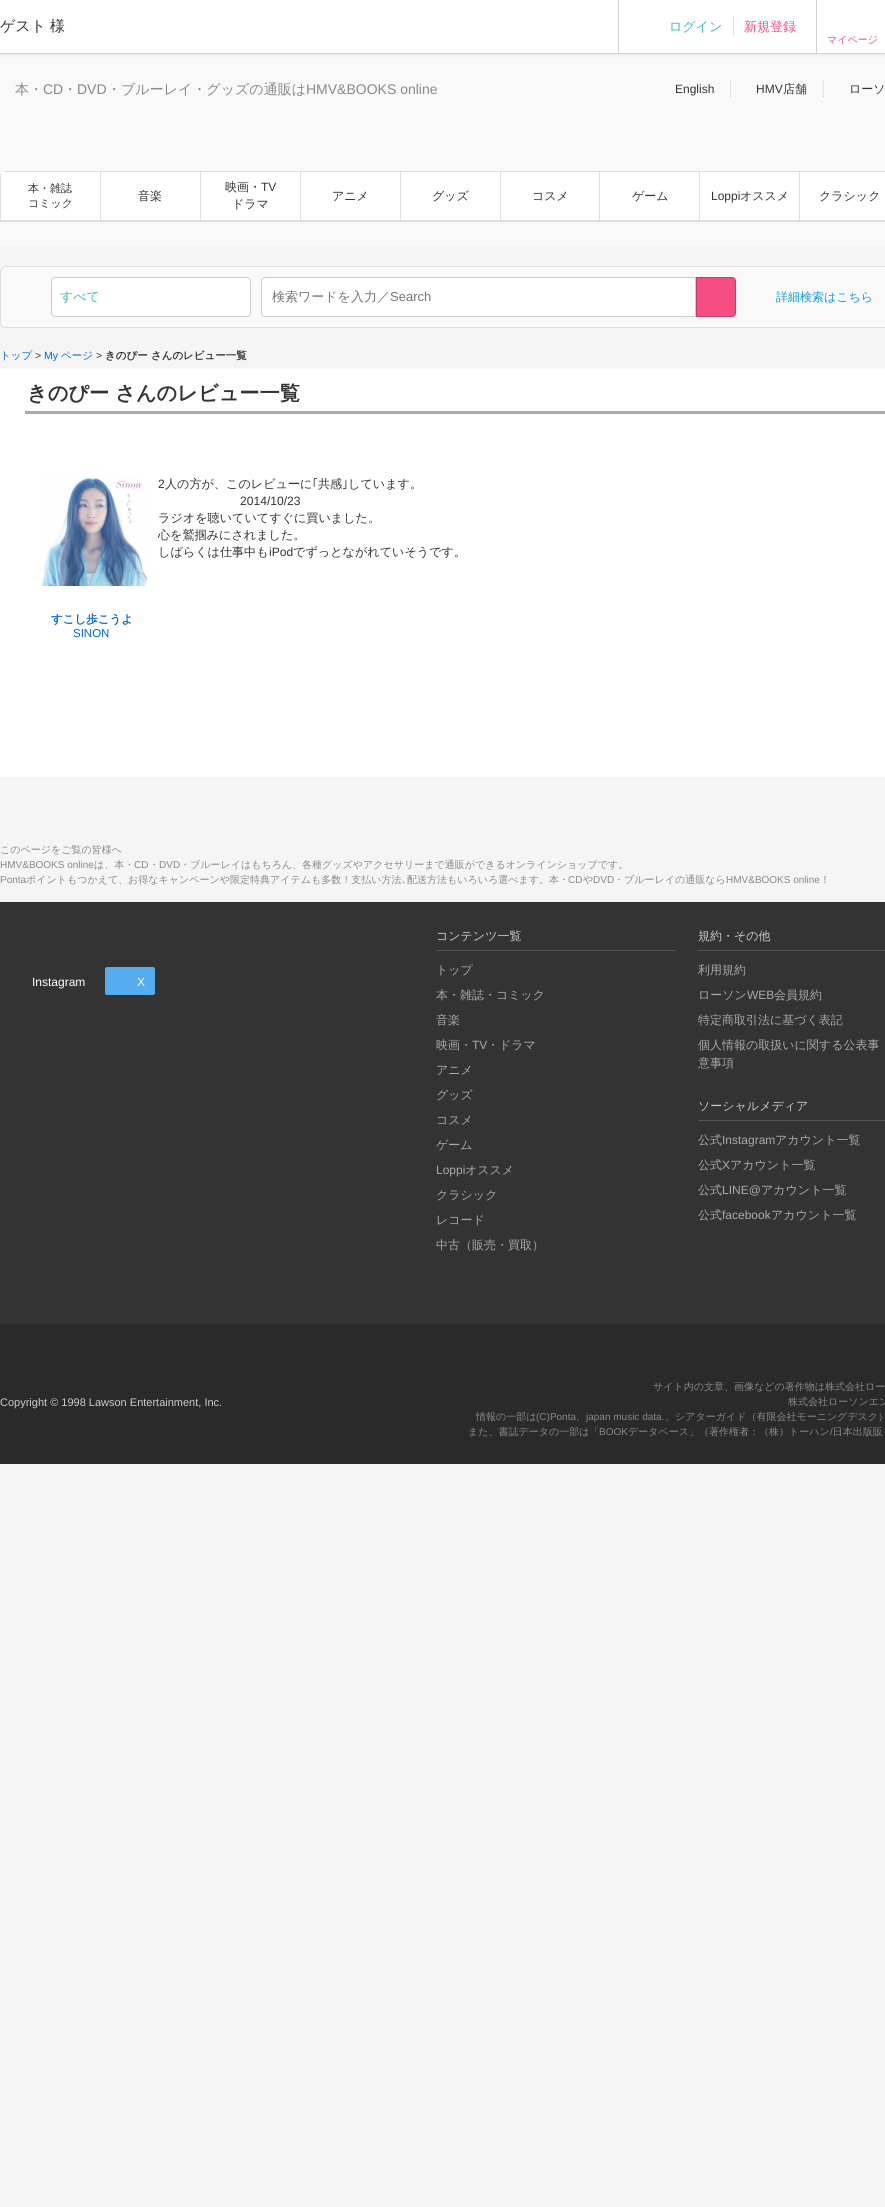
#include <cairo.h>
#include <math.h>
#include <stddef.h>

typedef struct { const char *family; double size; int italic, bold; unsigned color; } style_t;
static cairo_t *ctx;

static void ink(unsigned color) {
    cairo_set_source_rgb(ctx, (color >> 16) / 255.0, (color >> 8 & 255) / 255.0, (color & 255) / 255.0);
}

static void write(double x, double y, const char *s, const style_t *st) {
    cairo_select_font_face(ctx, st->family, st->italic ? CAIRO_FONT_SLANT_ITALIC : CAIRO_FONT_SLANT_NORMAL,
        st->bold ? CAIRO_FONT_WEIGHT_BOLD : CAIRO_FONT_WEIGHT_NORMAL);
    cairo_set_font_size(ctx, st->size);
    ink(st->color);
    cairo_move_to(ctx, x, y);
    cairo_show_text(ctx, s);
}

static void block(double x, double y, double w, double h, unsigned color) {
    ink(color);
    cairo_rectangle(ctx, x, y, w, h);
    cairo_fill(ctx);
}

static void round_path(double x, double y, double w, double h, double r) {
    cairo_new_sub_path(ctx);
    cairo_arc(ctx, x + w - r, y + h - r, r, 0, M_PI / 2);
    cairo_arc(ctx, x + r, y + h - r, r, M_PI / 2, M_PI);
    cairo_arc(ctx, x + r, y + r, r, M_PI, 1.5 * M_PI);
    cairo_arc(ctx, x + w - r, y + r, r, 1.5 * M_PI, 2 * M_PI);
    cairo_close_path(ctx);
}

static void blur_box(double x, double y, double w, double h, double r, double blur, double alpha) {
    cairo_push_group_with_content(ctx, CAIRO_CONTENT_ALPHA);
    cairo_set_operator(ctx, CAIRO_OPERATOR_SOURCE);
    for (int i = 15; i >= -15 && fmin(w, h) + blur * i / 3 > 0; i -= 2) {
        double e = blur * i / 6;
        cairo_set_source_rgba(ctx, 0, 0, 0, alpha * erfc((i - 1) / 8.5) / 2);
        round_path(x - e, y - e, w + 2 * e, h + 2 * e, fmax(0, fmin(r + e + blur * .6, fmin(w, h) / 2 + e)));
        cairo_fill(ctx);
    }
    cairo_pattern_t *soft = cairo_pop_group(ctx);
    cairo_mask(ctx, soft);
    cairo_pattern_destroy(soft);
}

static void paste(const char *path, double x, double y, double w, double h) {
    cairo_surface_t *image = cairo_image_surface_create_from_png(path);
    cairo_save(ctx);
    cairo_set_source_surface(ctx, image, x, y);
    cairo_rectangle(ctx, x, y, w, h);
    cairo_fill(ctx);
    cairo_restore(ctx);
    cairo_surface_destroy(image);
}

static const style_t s1 = {"WenQuanYi Zen Hei Medium", 15, 0, 0, 0x333333};
static const style_t s2 = {"WenQuanYi Zen Hei Medium", 13, 0, 0, 0x3bbbb6};
static const style_t s3 = {"WenQuanYi Zen Hei Medium", 13, 0, 0, 0xf64e83};
static const style_t s4 = {"WenQuanYi Zen Hei Medium", 10, 0, 0, 0xf64e83};
static const style_t s5 = {"WenQuanYi Zen Hei Medium", 14, 0, 0, 0x888888};
static const style_t s6 = {"Liberation Sans", 14, 0, 0, 0x888888};
static const style_t s7 = {"Liberation Sans", 12, 0, 0, 0x333333};
static const style_t s8 = {"WenQuanYi Zen Hei Medium", 12, 0, 0, 0x333333};
static const style_t s9 = {"WenQuanYi Zen Hei Medium", 11, 0, 0, 0x333333};
static const style_t s10 = {"WenQuanYi Zen Hei Medium", 13, 0, 0, 0x757575};
static const style_t s11 = {"Liberation Sans", 13, 0, 0, 0x757575};
static const style_t s12 = {"WenQuanYi Zen Hei Medium", 12, 0, 0, 0x109ad7};
static const style_t s13 = {"WenQuanYi Zen Hei Medium", 10.5, 0, 0, 0x0066cc};
static const style_t s14 = {"Liberation Sans", 10.5, 0, 0, 0x333333};
static const style_t s15 = {"Liberation Sans", 10.5, 0, 0, 0x0066cc};
static const style_t s16 = {"WenQuanYi Zen Hei", 10.5, 0, 1, 0x333333};
static const style_t s17 = {"WenQuanYi Zen Hei", 20.2, 0, 1, 0x333333};
static const style_t s18 = {"Liberation Sans", 12.1, 0, 0, 0x333333};
static const style_t s19 = {"WenQuanYi Zen Hei Medium", 12.1, 0, 0, 0x333333};
static const style_t s20 = {"IPAPGothic", 12.1, 0, 0, 0x333333};
static const style_t s21 = {"WenQuanYi Zen Hei", 11.5, 0, 1, 0x0066cc};
static const style_t s22 = {"Liberation Sans", 11.5, 0, 0, 0x0066cc};
static const style_t s23 = {"WenQuanYi Zen Hei Medium", 10, 0, 0, 0x888888};
static const style_t s24 = {"Liberation Sans", 10, 0, 0, 0x888888};
static const style_t s25 = {"IPAPGothic", 10, 0, 0, 0x888888};
static const style_t s26 = {"Liberation Sans", 12, 0, 0, 0xffffff};
static const style_t s27 = {"WenQuanYi Zen Hei Medium", 12, 0, 0, 0xcccccc};
static const style_t s28 = {"WenQuanYi Zen Hei Medium", 12, 0, 0, 0xaaaaaa};
static const style_t s29 = {"Liberation Sans", 12, 0, 0, 0xaaaaaa};
static const style_t s30 = {"Liberation Sans", 11, 0, 0, 0xcccccc};

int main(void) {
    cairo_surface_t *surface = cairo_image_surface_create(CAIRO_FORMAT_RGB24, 885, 2207);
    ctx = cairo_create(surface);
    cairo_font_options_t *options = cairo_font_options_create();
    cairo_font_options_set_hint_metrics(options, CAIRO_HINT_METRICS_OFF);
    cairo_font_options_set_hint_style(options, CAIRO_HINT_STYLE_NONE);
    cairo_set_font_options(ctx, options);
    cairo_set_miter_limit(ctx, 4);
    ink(0xf5f5f5);
    cairo_paint(ctx);
    block(0, 54, 885, 192, 0xf9f9f9);
    ink(0x000000);
    blur_box(0, 0, 885, 54, 0, 3, 0.1);
    block(0, 0, 885, 53, 0xffffff);
    block(0, 53, 885, 1, 0xd2d2d2);
    write(0, 31, "ゲスト", &s1);
    write(50, 31, "様", &s1);
    block(618, 0, 1, 54, 0xd2d2d2);
    write(669, 31, "ログイン", &s2);
    block(733, 17, 1, 19, 0xdedede);
    write(744, 31, "新規登録", &s3);
    block(816, 0, 1, 54, 0xd2d2d2);
    write(827, 43, "マイページ", &s4);
    write(15, 94, "本・", &s5);
    write(43, 94, "CD", &s6);
    write(63, 94, "・", &s5);
    write(77, 94, "DVD", &s6);
    write(107, 94, "・ブルーレイ・グッズの通販は", &s5);
    write(306, 94, "HMV&BOOKS online", &s6);
    write(675, 93, "English", &s7);
    cairo_new_path(ctx);
    cairo_move_to(ctx, 730.5, 80);
    cairo_line_to(ctx, 730.5, 98);
    ink(0xcccccc);
    cairo_set_line_width(ctx, 1);
    cairo_set_dash(ctx, (double[]){1, 1}, 2, 0);
    cairo_stroke(ctx);
    write(756, 93, "HMV", &s7);
    write(783, 93, "店舗", &s8);
    cairo_new_path(ctx);
    cairo_move_to(ctx, 823.5, 80);
    cairo_line_to(ctx, 823.5, 98);
    ink(0xcccccc);
    cairo_stroke(ctx);
    write(849, 93, "ローソ", &s8);
    block(0, 174, 1, 48, 0xdedede);
    ink(0xffffff);
    cairo_new_path(ctx);
    cairo_move_to(ctx, 6, 171);
    cairo_line_to(ctx, 101, 171);
    cairo_line_to(ctx, 101, 222);
    cairo_line_to(ctx, 1, 222);
    cairo_line_to(ctx, 1, 176);
    cairo_curve_to(ctx, 1, 173, 3, 171, 6, 171);
    cairo_close_path(ctx);
    cairo_fill(ctx);
    block(4, 171, 881, 1, 0xdedede);
    block(100, 171, 1, 51, 0xdedede);
    block(1, 220, 100, 2, 0xdedede);
    write(28, 192, "本・雑誌", &s9);
    write(28, 207, "コミック", &s9);
    block(101, 172, 99, 48, 0xffffff);
    block(200, 171, 1, 51, 0xdedede);
    block(101, 220, 100, 2, 0xdedede);
    write(138, 200, "音楽", &s8);
    block(201, 172, 99, 48, 0xffffff);
    block(300, 171, 1, 51, 0xdedede);
    block(201, 220, 100, 2, 0xdedede);
    write(225, 191, "映画・", &s8);
    write(261, 191, "TV", &s7);
    write(232, 208, "ドラマ", &s8);
    block(301, 172, 99, 48, 0xffffff);
    block(400, 171, 1, 51, 0xdedede);
    block(301, 220, 100, 2, 0xdedede);
    write(332, 200, "アニメ", &s8);
    block(401, 172, 99, 48, 0xffffff);
    block(500, 171, 1, 51, 0xdedede);
    block(401, 220, 100, 2, 0xdedede);
    write(432, 200, "グッズ", &s8);
    block(501, 172, 98, 48, 0xffffff);
    block(599, 171, 1, 51, 0xdedede);
    block(501, 220, 99, 2, 0xdedede);
    write(532, 200, "コスメ", &s8);
    block(600, 172, 99, 48, 0xffffff);
    block(699, 171, 1, 51, 0xdedede);
    block(600, 220, 100, 2, 0xdedede);
    write(632, 200, "ゲーム", &s8);
    block(700, 172, 99, 48, 0xffffff);
    block(799, 171, 1, 51, 0xdedede);
    block(700, 220, 185, 2, 0xdedede);
    write(711, 200, "Loppi", &s7);
    write(740, 200, "オススメ", &s8);
    block(800, 172, 85, 48, 0xffffff);
    write(819, 200, "クラシック", &s8);
    ink(0xf9f9f9);
    round_path(0.5, 266.5, 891, 61, 5.5);
    cairo_fill_preserve(ctx);
    ink(0xdedede);
    cairo_set_dash(ctx, NULL, 0, 0);
    cairo_stroke(ctx);
    ink(0xffffff);
    round_path(51.5, 277.5, 199, 39, 3.5);
    cairo_fill_preserve(ctx);
    ink(0xcccccc);
    cairo_stroke(ctx);
    write(60, 301, "すべて", &s2);
    ink(0xffffff);
    cairo_new_path(ctx);
    cairo_move_to(ctx, 216, 278);
    cairo_line_to(ctx, 247, 278);
    cairo_curve_to(ctx, 248.5, 278, 250, 279.5, 250, 281);
    cairo_line_to(ctx, 250, 313);
    cairo_curve_to(ctx, 250, 314.5, 248.5, 316, 247, 316);
    cairo_line_to(ctx, 216, 316);
    cairo_close_path(ctx);
    cairo_fill(ctx);
    cairo_new_path(ctx);
    cairo_move_to(ctx, 265, 277.5);
    cairo_line_to(ctx, 695.5, 277.5);
    cairo_line_to(ctx, 695.5, 316.5);
    cairo_line_to(ctx, 265, 316.5);
    cairo_curve_to(ctx, 263, 316.5, 261.5, 315, 261.5, 313);
    cairo_line_to(ctx, 261.5, 281);
    cairo_curve_to(ctx, 261.5, 279, 263, 277.5, 265, 277.5);
    cairo_close_path(ctx);
    cairo_fill_preserve(ctx);
    ink(0xcccccc);
    cairo_stroke(ctx);
    write(272, 301, "検索ワードを入力／", &s10);
    write(390, 301, "Search", &s11);
    ink(0xf64e83);
    cairo_new_path(ctx);
    cairo_move_to(ctx, 696.5, 277.5);
    cairo_line_to(ctx, 732, 277.5);
    cairo_curve_to(ctx, 734, 277.5, 735.5, 279, 735.5, 281);
    cairo_line_to(ctx, 735.5, 313);
    cairo_curve_to(ctx, 735.5, 315, 734, 316.5, 732, 316.5);
    cairo_line_to(ctx, 696.5, 316.5);
    cairo_close_path(ctx);
    cairo_fill_preserve(ctx);
    ink(0xc63f6a);
    cairo_stroke(ctx);
    write(776, 301, "詳細検索はこちら", &s12);
    write(0, 359, "トップ", &s13);
    write(35, 359, ">", &s14);
    write(44, 359, "My", &s15);
    write(61, 359, "ページ", &s13);
    write(96, 359, ">", &s14);
    write(105, 359, "きのぴー さんのレビュー一覧", &s16);
    block(0, 369, 885, 408, 0xffffff);
    block(25, 411, 860, 3, 0xaaaaaa);
    write(27, 400, "きのぴー さんのレビュー一覧", &s17);
    write(158, 488, "2", &s18);
    write(165, 488, "人の方が、このレビューに", &s19);
    write(312, 488, "｢", &s20);
    write(318, 488, "共感", &s19);
    write(342, 488, "｣", &s20);
    write(348, 488, "しています。", &s19);
    write(240, 505, "2014/10/23", &s18);
    write(158, 522, "ラジオを聴いていてすぐに買いました。", &s19);
    write(158, 539, "心を鷲掴みにされました。", &s19);
    write(158, 556, "しばらくは仕事中も", &s19);
    write(269, 556, "iPod", &s18);
    write(293, 556, "でずっとながれていそうです。", &s19);
    paste("pic1.png", 41, 477, 106, 109);
    write(51, 623, "すこし歩こうよ", &s21);
    write(73, 637, "SINON", &s22);
    write(0, 853, "このページをご覧の皆様へ", &s23);
    write(0, 868, "HMV&BOOKS online", &s24);
    write(94, 868, "は、本・", &s23);
    write(134, 868, "CD", &s24);
    write(149, 868, "・", &s23);
    write(159, 868, "DVD", &s24);
    write(180, 868, "・ブルーレイはもちろん、各種グッズやアクセサリーまで通販ができるオンラインショップです。", &s23);
    write(0, 883, "Ponta", &s24);
    write(26, 883, "ポイントもつかえて、お得なキャンペーンや限定特典アイテムも多数！支払い方法", &s23);
    write(402, 883, "､", &s25);
    write(407, 883, "配送方法もいろいろ選べます。本・", &s23);
    write(568, 883, "CD", &s24);
    write(583, 883, "や", &s23);
    write(593, 883, "DVD", &s24);
    write(614, 883, "・ブルーレイの通販なら", &s23);
    write(726, 883, "HMV&BOOKS online", &s24);
    write(820, 883, "！", &s23);
    block(0, 902, 885, 422, 0x333333);
    write(32, 986, "Instagram", &s26);
    ink(0x55acee);
    round_path(105, 967, 50, 28, 2);
    cairo_fill(ctx);
    write(137, 986, "X", &s26);
    block(436, 950, 240, 1, 0x555555);
    write(436, 940, "コンテンツ一覧", &s27);
    write(436, 974, "トップ", &s28);
    write(436, 999, "本・雑誌・コミック", &s28);
    write(436, 1024, "音楽", &s28);
    write(436, 1049, "映画・", &s28);
    write(472, 1049, "TV", &s29);
    write(487, 1049, "・ドラマ", &s28);
    write(436, 1074, "アニメ", &s28);
    write(436, 1099, "グッズ", &s28);
    write(436, 1124, "コスメ", &s28);
    write(436, 1149, "ゲーム", &s28);
    write(436, 1174, "Loppi", &s29);
    write(465, 1174, "オススメ", &s28);
    write(436, 1199, "クラシック", &s28);
    write(436, 1224, "レコード", &s28);
    write(436, 1249, "中古（販売・買取）", &s28);
    block(698, 950, 187, 1, 0x555555);
    write(698, 940, "規約・その他", &s27);
    write(698, 974, "利用規約", &s28);
    write(698, 999, "ローソン", &s28);
    write(747, 999, "WEB", &s29);
    write(774, 999, "会員規約", &s28);
    write(698, 1024, "特定商取引法に基づく表記", &s28);
    write(698, 1049, "個人情報の取扱いに関する公表事", &s28);
    write(698, 1067, "意事項", &s28);
    block(698, 1120, 187, 1, 0x555555);
    write(698, 1110, "ソーシャルメディア", &s27);
    write(698, 1144, "公式", &s28);
    write(722, 1144, "Instagram", &s29);
    write(775, 1144, "アカウント一覧", &s28);
    write(698, 1169, "公式", &s28);
    write(722, 1169, "X", &s29);
    write(730, 1169, "アカウント一覧", &s28);
    write(698, 1194, "公式", &s28);
    write(722, 1194, "LINE@", &s29);
    write(761, 1194, "アカウント一覧", &s28);
    write(698, 1219, "公式", &s28);
    write(722, 1219, "facebook", &s29);
    write(771, 1219, "アカウント一覧", &s28);
    block(0, 1324, 885, 140, 0x2a2a2a);
    write(0, 1406, "Copyright © 1998 Lawson Entertainment, Inc.", &s30);
    write(653, 1390, "サイト内の文章、画像などの著作物は株式会社ロー", &s23);
    write(788, 1405, "株式会社ローソンエン", &s23);
    write(476, 1420, "情報の一部は", &s23);
    write(536, 1420, "(C)Ponta", &s24);
    write(576, 1420, "、", &s23);
    write(586, 1420, "japan music data.", &s24);
    write(665, 1420, "、シアターガイド（有限会社モーニングデスク）", &s23);
    write(468, 1435, "また、書誌データの一部は「", &s23);
    write(628, 1435, "データベース」（著作権者：（株）トーハン 日本出版販", &s23);
    write(599, 1435, "BOOK", &s24);
    write(830, 1435, "/", &s24);
    cairo_surface_write_to_png(surface, "screenshot.png");
    cairo_font_options_destroy(options);
    cairo_destroy(ctx);
    cairo_surface_destroy(surface);
    return 0;
}
